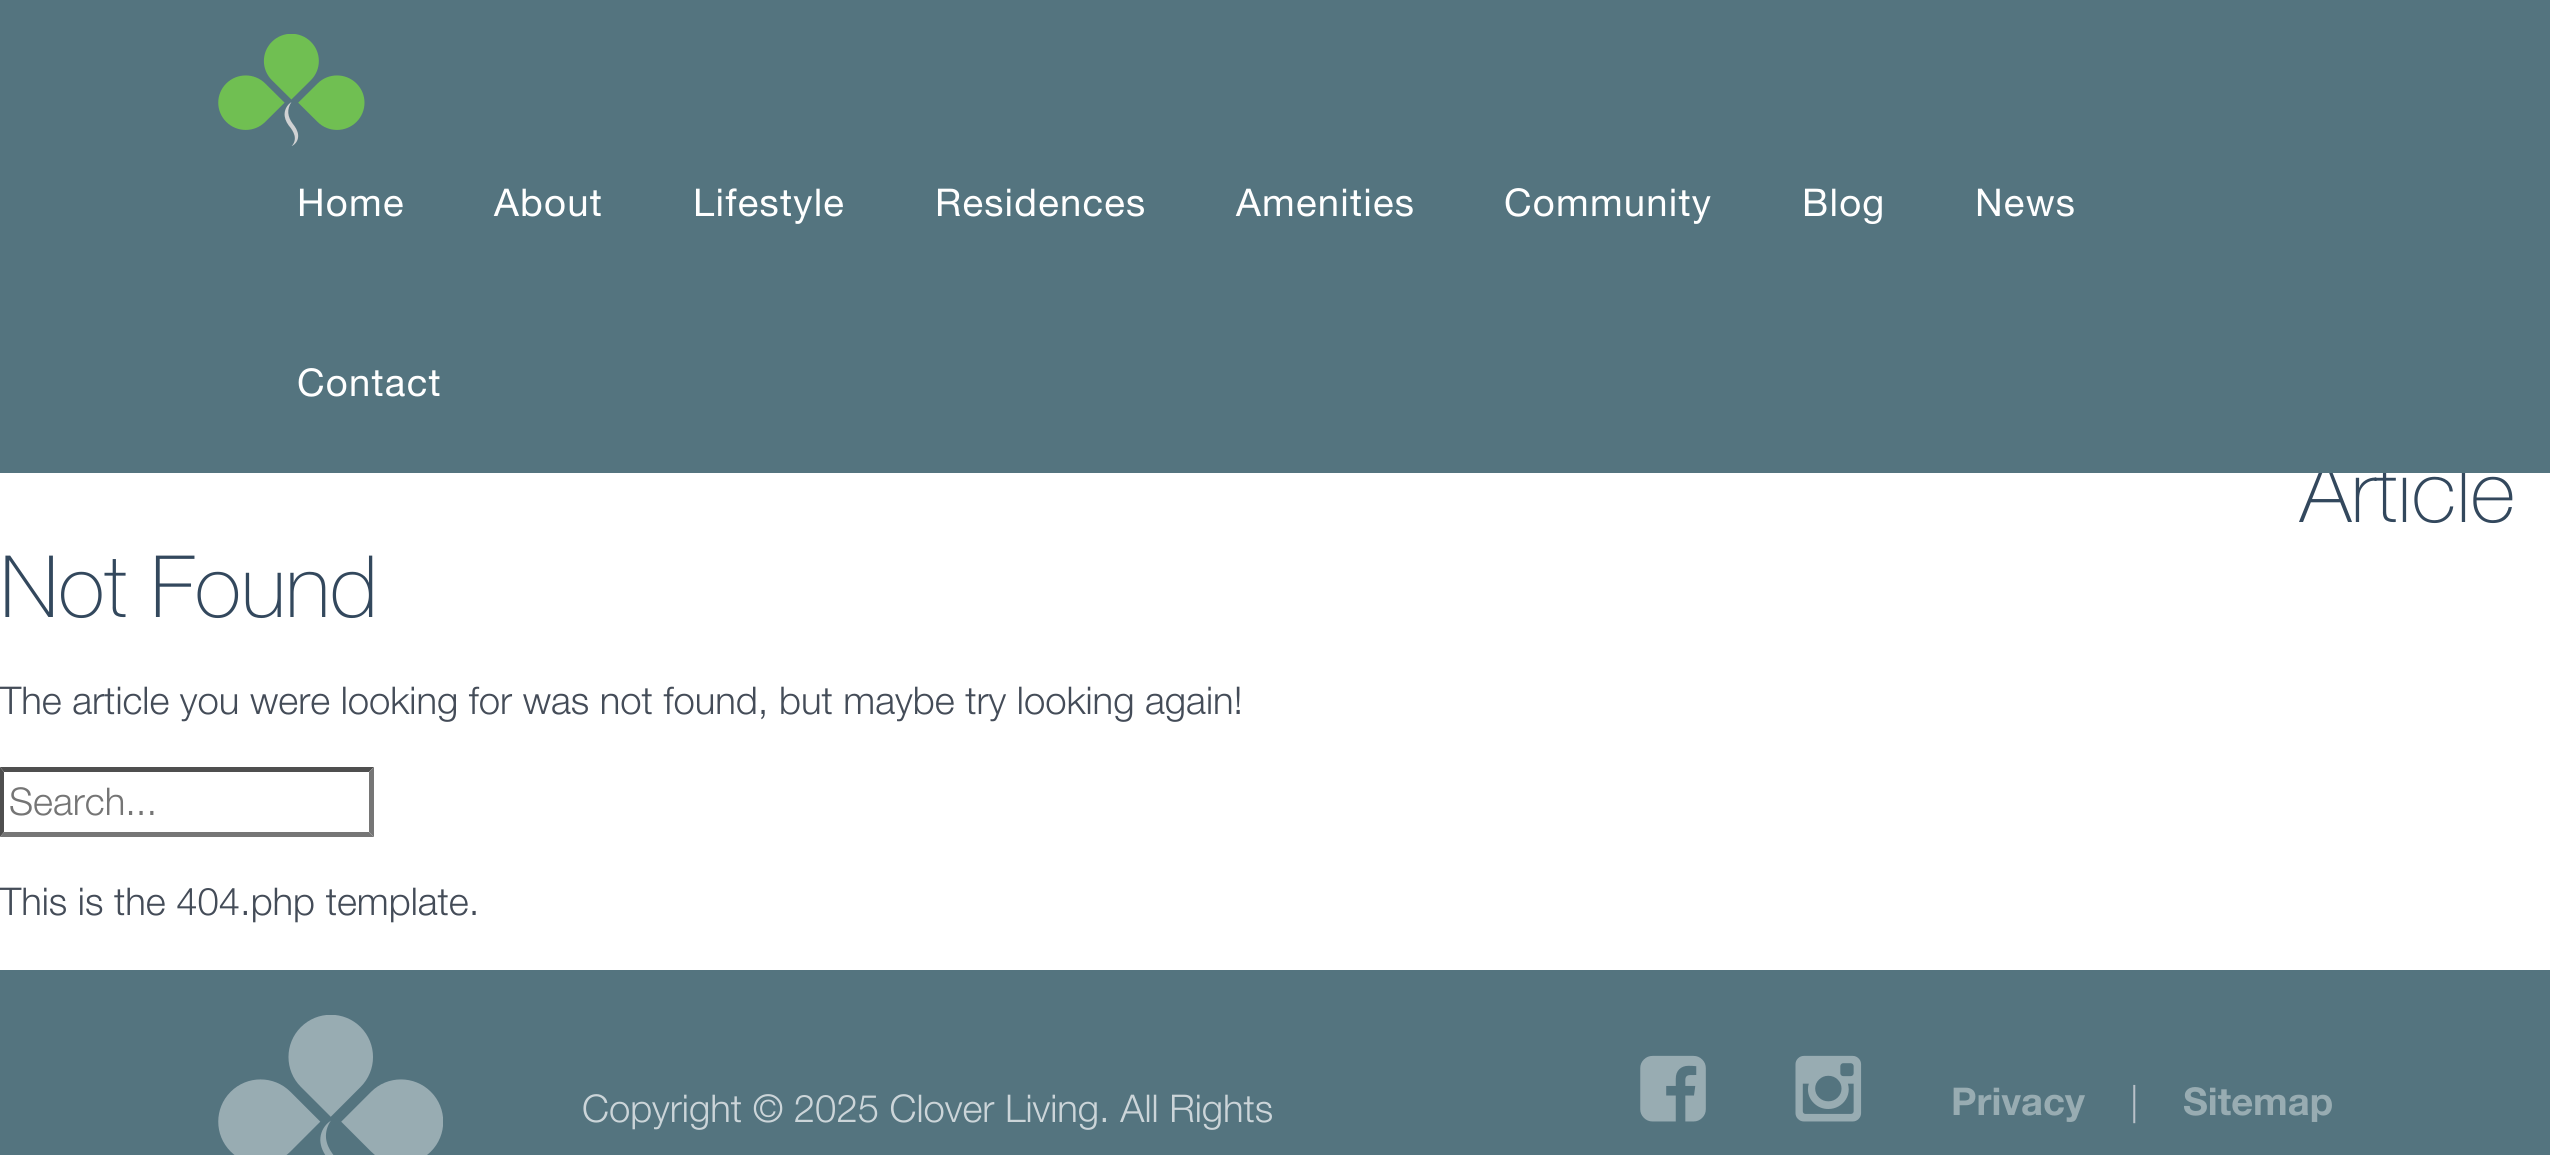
#include <cairo.h>
#include <math.h>
#include <stddef.h>

typedef struct { const char *family; double size; int italic, bold; unsigned color; } style_t;
static cairo_t *ctx;

static void ink(unsigned color) {
    cairo_set_source_rgb(ctx, (color >> 16) / 255.0, (color >> 8 & 255) / 255.0, (color & 255) / 255.0);
}

static void write(double x, double y, const char *s, const style_t *st) {
    cairo_select_font_face(ctx, st->family, st->italic ? CAIRO_FONT_SLANT_ITALIC : CAIRO_FONT_SLANT_NORMAL,
        st->bold ? CAIRO_FONT_WEIGHT_BOLD : CAIRO_FONT_WEIGHT_NORMAL);
    cairo_set_font_size(ctx, st->size);
    ink(st->color);
    cairo_move_to(ctx, x, y);
    cairo_show_text(ctx, s);
}

static void write_spaced(double x, double y, const char *s, double letter, double word) {
    cairo_move_to(ctx, x, y);
    while (*s) {
        char ch[5] = {0};
        int n = 0;
        do ch[n++] = *s++; while ((*s & 0xC0) == 0x80);
        cairo_show_text(ctx, ch);
        cairo_rel_move_to(ctx, letter + word * (*ch == ' '), 0);
    }
}

static void block(double x, double y, double w, double h, unsigned color) {
    ink(color);
    cairo_rectangle(ctx, x, y, w, h);
    cairo_fill(ctx);
}

static void paste(const char *path, double x, double y, double w, double h) {
    cairo_surface_t *image = cairo_image_surface_create_from_png(path);
    cairo_save(ctx);
    cairo_set_source_surface(ctx, image, x, y);
    cairo_rectangle(ctx, x, y, w, h);
    cairo_fill(ctx);
    cairo_restore(ctx);
    cairo_surface_destroy(image);
}

static const style_t s1 = {"Helvetica Neue Thin", 86, 0, 0, 0x33485d};
static const style_t s2 = {"Helvetica Neue Light", 38.25, 0, 0, 0x444c58};
static const style_t s3 = {"Helvetica Neue Light", 38.25, 0, 0, 0x757575};
static const style_t s4 = {"Helvetica Neue Light", 38.25, 0, 0, 0xccd5d9};
static const style_t s5 = {"Helvetica Neue", 38.25, 0, 1, 0x98acb2};
static const style_t s6 = {"Helvetica Neue Light", 38.25, 0, 0, 0xb9c1c9};

int main(void) {
    cairo_surface_t *surface = cairo_image_surface_create(CAIRO_FORMAT_RGB24, 2550, 1155);
    ctx = cairo_create(surface);
    cairo_font_options_t *options = cairo_font_options_create();
    cairo_font_options_set_hint_metrics(options, CAIRO_HINT_METRICS_OFF);
    cairo_font_options_set_hint_style(options, CAIRO_HINT_STYLE_NONE);
    cairo_set_font_options(ctx, options);
    cairo_set_miter_limit(ctx, 4);
    ink(0xffffff);
    cairo_paint(ctx);
    write(2300, 522, "Article", &s1);
    block(0, 0, 2550, 473, 0x54747f);
    paste("pic1.png", 218, 34, 147, 112);
    cairo_select_font_face(ctx, "Helvetica Neue", CAIRO_FONT_SLANT_NORMAL, CAIRO_FONT_WEIGHT_NORMAL);
    cairo_set_font_size(ctx, 38.25);
    ink(0xffffff);
    write_spaced(297, 216, "Home", 1.25, 0);
    write_spaced(494, 216, "About", 1.25, 0);
    write_spaced(693, 216, "Lifestyle", 1.25, 0);
    write_spaced(935, 216, "Residences", 1.25, 0);
    write_spaced(1236, 216, "Amenities", 1.25, 0);
    write_spaced(1504, 216, "Community", 1.25, 0);
    write_spaced(1802, 216, "Blog", 1.25, 0);
    write_spaced(1975, 216, "News", 1.25, 0);
    write_spaced(297, 396, "Contact", 1.25, 0);
    write(0, 617, "Not Found", &s1);
    write(0, 714, "The article you were looking for was not found, but maybe try looking again!", &s2);
    ink(0x4f4f4f);
    cairo_new_path(ctx);
    cairo_move_to(ctx, 0, 767);
    cairo_line_to(ctx, 374, 767);
    cairo_line_to(ctx, 369, 772);
    cairo_line_to(ctx, 4, 772);
    cairo_close_path(ctx);
    cairo_fill(ctx);
    ink(0x767676);
    cairo_new_path(ctx);
    cairo_move_to(ctx, 374, 767);
    cairo_line_to(ctx, 374, 837);
    cairo_line_to(ctx, 369, 832);
    cairo_line_to(ctx, 369, 772);
    cairo_close_path(ctx);
    cairo_fill(ctx);
    cairo_new_path(ctx);
    cairo_move_to(ctx, 374, 837);
    cairo_line_to(ctx, 0, 837);
    cairo_line_to(ctx, 4, 832);
    cairo_line_to(ctx, 369, 832);
    cairo_close_path(ctx);
    cairo_fill(ctx);
    ink(0x4f4f4f);
    cairo_new_path(ctx);
    cairo_move_to(ctx, 0, 837);
    cairo_line_to(ctx, 0, 767);
    cairo_line_to(ctx, 4, 772);
    cairo_line_to(ctx, 4, 832);
    cairo_close_path(ctx);
    cairo_fill(ctx);
    write(9, 815, "Search...", &s3);
    write(0, 915, "This is the 404.php template.", &s2);
    block(0, 970, 2550, 185, 0x54747f);
    paste("pic2.png", 218, 1015, 225, 140);
    write(582, 1122, "Copyright © 2025 Clover Living. All Rights", &s4);
    paste("pic3.png", 1640, 1055, 66, 67);
    paste("pic4.png", 1795, 1055, 67, 67);
    write(1951, 1115, "Privacy", &s5);
    write(2130, 1115, "|", &s6);
    write(2183, 1115, "Sitemap", &s5);
    cairo_surface_write_to_png(surface, "screenshot.png");
    cairo_font_options_destroy(options);
    cairo_destroy(ctx);
    cairo_surface_destroy(surface);
    return 0;
}
